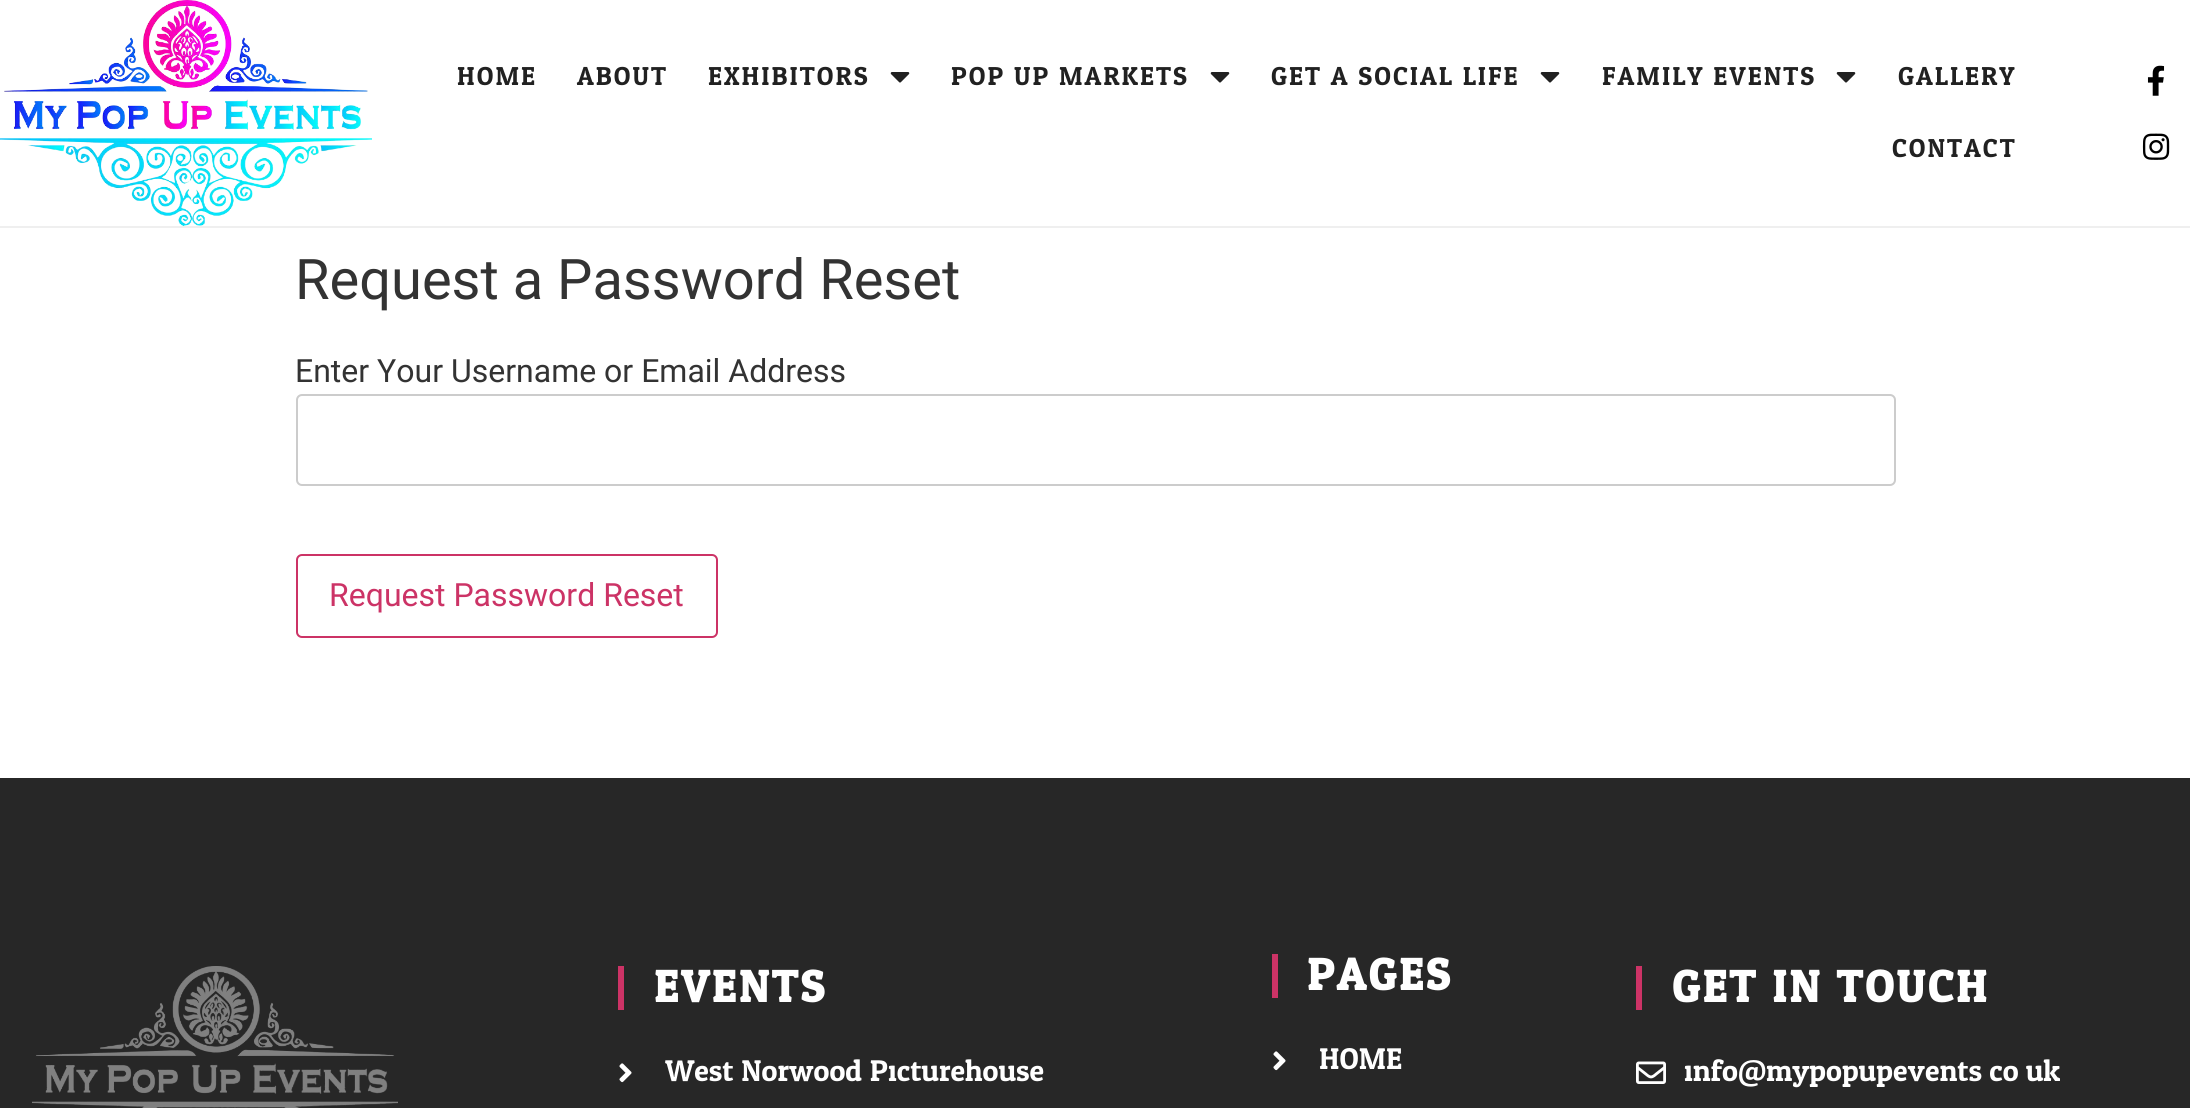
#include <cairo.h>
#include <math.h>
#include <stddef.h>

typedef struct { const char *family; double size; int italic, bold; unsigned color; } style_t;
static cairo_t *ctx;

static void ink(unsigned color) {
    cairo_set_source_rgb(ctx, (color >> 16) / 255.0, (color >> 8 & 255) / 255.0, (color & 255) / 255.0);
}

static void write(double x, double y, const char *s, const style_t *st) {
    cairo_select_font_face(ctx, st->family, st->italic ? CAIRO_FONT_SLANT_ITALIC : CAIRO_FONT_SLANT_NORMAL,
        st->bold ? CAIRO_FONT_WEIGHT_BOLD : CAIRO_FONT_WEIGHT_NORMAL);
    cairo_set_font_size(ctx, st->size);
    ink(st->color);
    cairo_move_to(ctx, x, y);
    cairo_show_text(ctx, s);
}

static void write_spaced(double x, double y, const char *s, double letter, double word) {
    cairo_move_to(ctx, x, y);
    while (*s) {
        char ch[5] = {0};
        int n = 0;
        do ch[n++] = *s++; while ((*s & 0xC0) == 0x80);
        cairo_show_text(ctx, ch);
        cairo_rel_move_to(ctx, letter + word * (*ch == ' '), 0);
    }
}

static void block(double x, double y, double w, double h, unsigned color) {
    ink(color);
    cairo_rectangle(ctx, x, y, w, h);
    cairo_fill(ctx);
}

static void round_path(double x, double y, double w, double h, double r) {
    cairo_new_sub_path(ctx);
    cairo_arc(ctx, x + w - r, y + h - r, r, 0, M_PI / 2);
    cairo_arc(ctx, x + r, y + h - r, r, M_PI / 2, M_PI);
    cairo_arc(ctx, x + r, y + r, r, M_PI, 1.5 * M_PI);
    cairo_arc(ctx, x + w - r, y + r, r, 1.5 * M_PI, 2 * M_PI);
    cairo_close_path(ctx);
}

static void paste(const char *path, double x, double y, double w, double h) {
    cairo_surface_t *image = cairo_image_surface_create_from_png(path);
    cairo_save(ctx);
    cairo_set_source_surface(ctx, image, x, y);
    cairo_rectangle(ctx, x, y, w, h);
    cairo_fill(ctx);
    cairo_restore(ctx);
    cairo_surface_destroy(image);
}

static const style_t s1 = {"Roboto", 56, 0, 0, 0x333333};
static const style_t s2 = {"Roboto", 32, 0, 0, 0x333333};
static const style_t s3 = {"Roboto", 32, 0, 0, 0xcc3366};
static const style_t s4 = {"Odor Mean Chey", 30, 0, 0, 0xffffff};

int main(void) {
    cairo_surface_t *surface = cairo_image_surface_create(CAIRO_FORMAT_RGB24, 2190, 1108);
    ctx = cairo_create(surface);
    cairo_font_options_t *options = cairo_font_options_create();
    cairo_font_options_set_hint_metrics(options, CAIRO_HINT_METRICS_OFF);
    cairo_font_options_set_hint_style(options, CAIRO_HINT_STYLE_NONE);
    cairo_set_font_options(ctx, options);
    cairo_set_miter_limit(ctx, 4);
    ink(0xffffff);
    cairo_paint(ctx);
    block(0, 226, 2190, 2, 0xefefef);
    paste("pic1.png", 0, 0, 372, 226);
    cairo_select_font_face(ctx, "Odor Mean Chey", CAIRO_FONT_SLANT_NORMAL, CAIRO_FONT_WEIGHT_NORMAL);
    cairo_set_font_size(ctx, 26);
    ink(0x212121);
    write_spaced(457, 85, "HOME", 2, 0);
    write_spaced(577, 85, "ABOUT", 2, 0);
    write_spaced(708, 85, "EXHIBITORS", 2, 0);
    paste("pic2.png", 890, 72, 20, 11);
    write_spaced(951, 85, "POP UP MARKETS", 2, 0);
    paste("pic2.png", 1210, 72, 20, 11);
    write_spaced(1271, 85, "GET A SOCIAL LIFE", 2, 0);
    paste("pic2.png", 1540, 72, 20, 11);
    write_spaced(1602, 85, "FAMILY EVENTS", 2, 0);
    paste("pic2.png", 1836, 72, 20, 11);
    write_spaced(1898, 85, "GALLERY", 2, 0);
    write_spaced(1892, 157, "CONTACT", 2, 0);
    paste("pic3.png", 2147, 65, 18, 31);
    paste("pic4.png", 2142, 133, 28, 27);
    write(295, 299, "Request a Password Reset", &s1);
    write(295, 382, "Enter Your Username or Email Address", &s2);
    round_path(297, 395, 1598, 90, 5);
    ink(0xcccccc);
    cairo_stroke(ctx);
    round_path(297, 555, 420, 82, 5);
    ink(0xcc3366);
    cairo_stroke(ctx);
    write(329, 606, "Request Password Reset", &s3);
    block(0, 778, 2190, 330, 0x272727);
    paste("pic5.png", 32, 966, 366, 142);
    block(618, 966, 6, 44, 0xcc3366);
    cairo_select_font_face(ctx, "Odor Mean Chey", CAIRO_FONT_SLANT_NORMAL, CAIRO_FONT_WEIGHT_BOLD);
    cairo_set_font_size(ctx, 44.75);
    ink(0xffffff);
    write_spaced(654, 1002, "EVENTS", 2.75, 0);
    paste("pic6.png", 619, 1063, 13, 20);
    write(665, 1081, "West Norwood Picturehouse", &s4);
    block(1272, 954, 6, 44, 0xcc3366);
    cairo_select_font_face(ctx, "Odor Mean Chey", CAIRO_FONT_SLANT_NORMAL, CAIRO_FONT_WEIGHT_BOLD);
    cairo_set_font_size(ctx, 44.75);
    ink(0xffffff);
    write_spaced(1307, 990, "PAGES", 2.75, 0);
    paste("pic6.png", 1273, 1051, 13, 20);
    write(1319, 1069, "HOME", &s4);
    block(1636, 966, 6, 44, 0xcc3366);
    cairo_select_font_face(ctx, "Odor Mean Chey", CAIRO_FONT_SLANT_NORMAL, CAIRO_FONT_WEIGHT_BOLD);
    cairo_set_font_size(ctx, 44.75);
    ink(0xffffff);
    write_spaced(1672, 1002, "GET IN TOUCH", 2.75, 0);
    paste("pic7.png", 1636, 1061, 30, 23);
    write(1684, 1081, "info@mypopupevents.co.uk", &s4);
    cairo_surface_write_to_png(surface, "screenshot.png");
    cairo_font_options_destroy(options);
    cairo_destroy(ctx);
    cairo_surface_destroy(surface);
    return 0;
}
